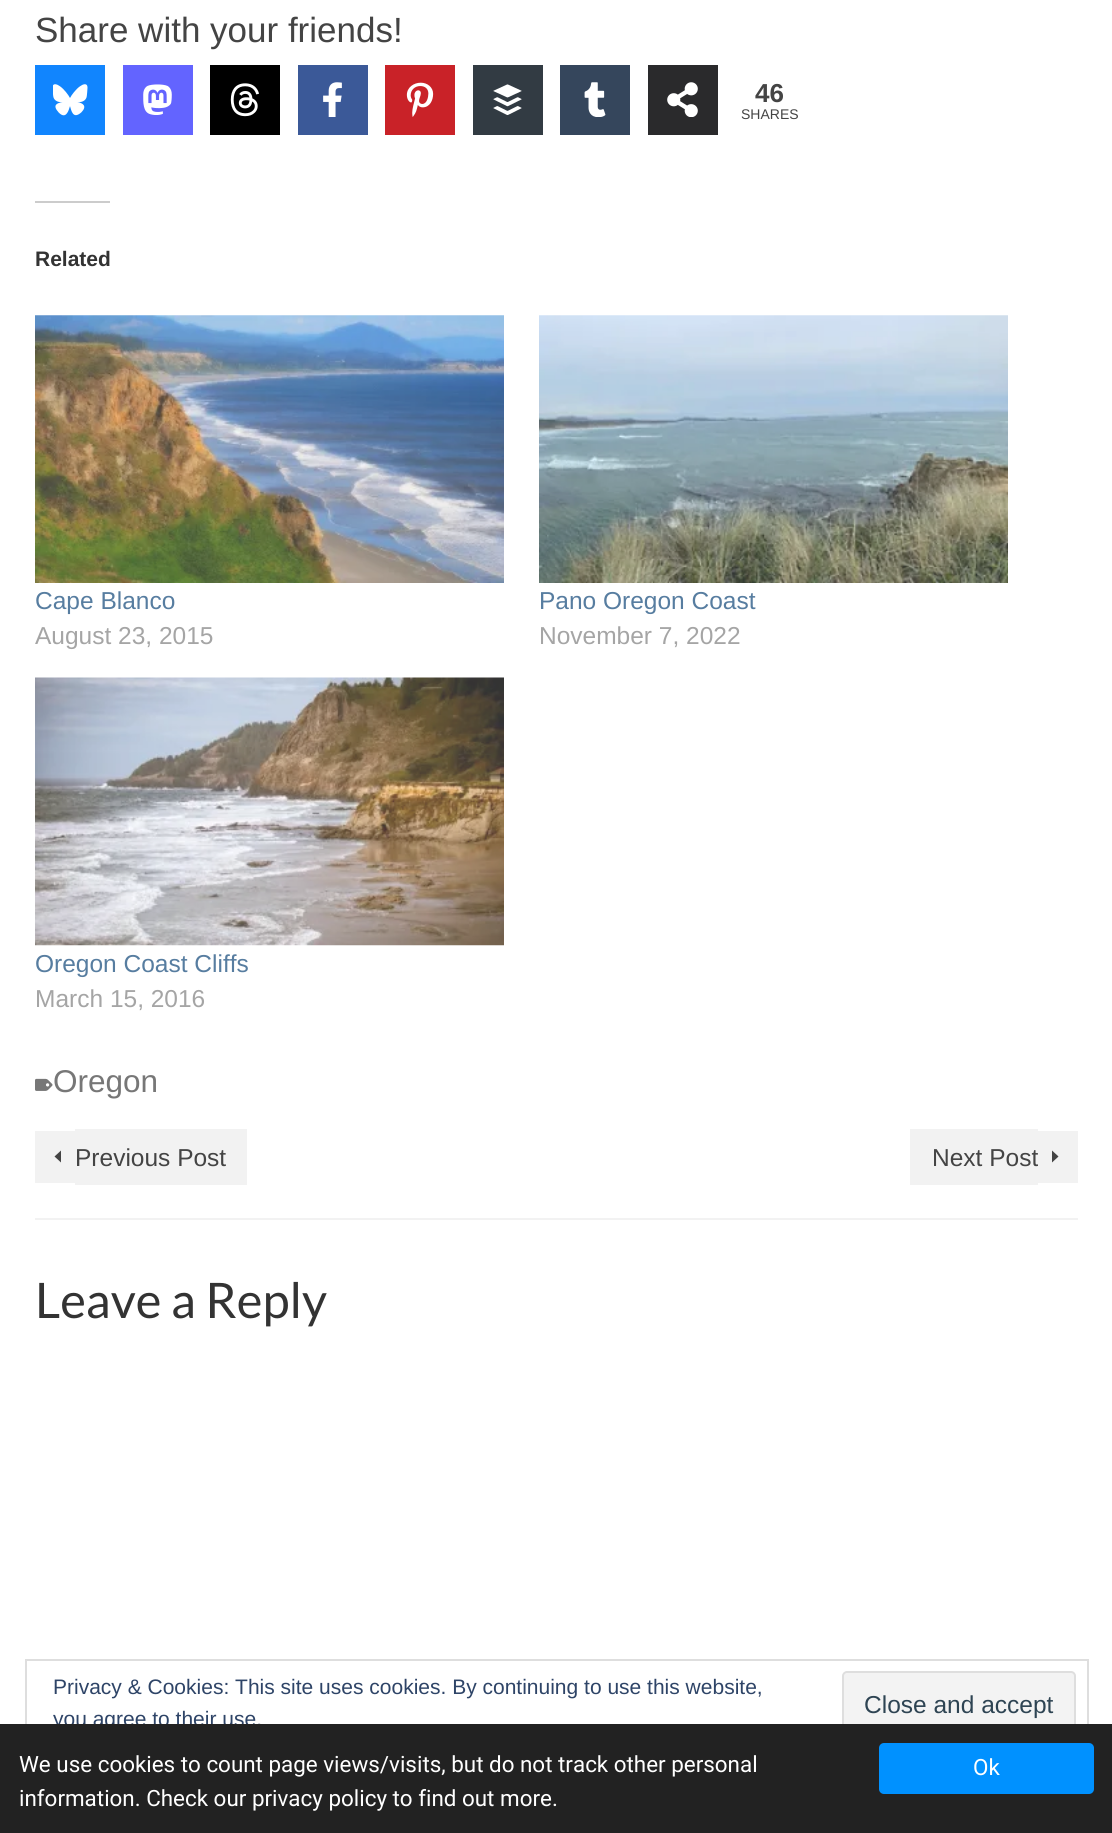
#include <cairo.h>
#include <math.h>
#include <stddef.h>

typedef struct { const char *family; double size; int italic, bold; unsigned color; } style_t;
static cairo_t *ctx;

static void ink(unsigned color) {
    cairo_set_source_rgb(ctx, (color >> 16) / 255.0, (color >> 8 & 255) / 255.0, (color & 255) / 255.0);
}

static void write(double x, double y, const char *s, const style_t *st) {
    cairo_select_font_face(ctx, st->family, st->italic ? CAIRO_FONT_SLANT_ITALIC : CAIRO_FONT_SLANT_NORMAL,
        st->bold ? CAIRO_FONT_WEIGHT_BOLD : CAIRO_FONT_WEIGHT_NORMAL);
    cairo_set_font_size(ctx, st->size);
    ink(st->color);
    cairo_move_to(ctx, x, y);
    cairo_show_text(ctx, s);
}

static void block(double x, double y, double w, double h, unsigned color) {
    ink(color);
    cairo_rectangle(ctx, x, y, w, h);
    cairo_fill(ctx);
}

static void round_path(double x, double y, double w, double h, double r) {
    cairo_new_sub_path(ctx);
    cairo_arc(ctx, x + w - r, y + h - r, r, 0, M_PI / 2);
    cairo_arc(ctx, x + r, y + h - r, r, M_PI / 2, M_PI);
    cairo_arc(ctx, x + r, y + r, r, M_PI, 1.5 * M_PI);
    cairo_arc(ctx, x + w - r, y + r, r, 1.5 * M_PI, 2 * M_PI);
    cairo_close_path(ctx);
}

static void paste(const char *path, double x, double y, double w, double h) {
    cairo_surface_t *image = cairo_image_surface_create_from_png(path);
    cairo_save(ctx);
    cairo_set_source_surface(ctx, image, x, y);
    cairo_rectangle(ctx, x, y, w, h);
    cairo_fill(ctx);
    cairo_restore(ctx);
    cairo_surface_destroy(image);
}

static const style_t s1 = {"Liberation Sans", 35, 0, 0, 0x444444};
static const style_t s2 = {"Liberation Sans", 26, 0, 1, 0x444444};
static const style_t s3 = {"Liberation Sans", 14, 0, 0, 0x444444};
static const style_t s4 = {"Liberation Sans", 21, 0, 1, 0x333333};
static const style_t s5 = {"Liberation Sans", 24.5, 0, 0, 0x577da0};
static const style_t s6 = {"Liberation Sans", 24.5, 0, 0, 0xa5a5a5};
static const style_t s7 = {"Liberation Sans", 31.5, 0, 0, 0x777777};
static const style_t s8 = {"Liberation Sans", 24.5, 0, 0, 0x444444};
static const style_t s9 = {"Lato", 49, 0, 0, 0x333333};
static const style_t s10 = {"Liberation Sans", 21, 0, 0, 0x2e4467};
static const style_t s11 = {"Liberation Sans", 24.5, 0, 0, 0x2e4453};
static const style_t s12 = {"Roboto", 22.4, 0, 0, 0xffffff};

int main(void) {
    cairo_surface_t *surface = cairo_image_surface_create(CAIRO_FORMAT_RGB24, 1112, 1833);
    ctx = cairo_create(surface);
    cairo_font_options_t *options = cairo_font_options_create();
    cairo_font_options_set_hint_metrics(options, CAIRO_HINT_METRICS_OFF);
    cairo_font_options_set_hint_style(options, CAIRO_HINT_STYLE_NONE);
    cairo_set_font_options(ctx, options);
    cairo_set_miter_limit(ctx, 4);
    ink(0xffffff);
    cairo_paint(ctx);
    write(35, 42, "Share with your friends!", &s1);
    block(35, 65, 70, 70, 0x1185fe);
    paste("pic1.png", 53, 84, 35, 32);
    block(123, 65, 70, 70, 0x6364ff);
    paste("pic2.png", 143, 84, 29, 31);
    block(210, 65, 70, 70, 0x000000);
    paste("pic3.png", 230, 83, 29, 34);
    block(298, 65, 70, 70, 0x3b5998);
    paste("pic4.png", 323, 82, 19, 35);
    block(385, 65, 70, 70, 0xc92228);
    paste("pic5.png", 406, 82, 28, 35);
    block(473, 65, 70, 70, 0x323b43);
    paste("pic6.png", 493, 84, 29, 31);
    block(560, 65, 70, 70, 0x35465c);
    paste("pic7.png", 584, 82, 22, 35);
    block(648, 65, 70, 70, 0x2a2a2c);
    paste("pic8.png", 667, 82, 31, 35);
    write(755, 102, "46", &s2);
    write(741, 119, "SHARES", &s3);
    block(35, 201, 75, 2, 0xcccccc);
    write(35, 266, "Related", &s4);
    paste("pic9.png", 35, 315, 469, 268);
    write(35, 609, "Cape Blanco", &s5);
    write(35, 644, "August 23, 2015", &s6);
    paste("pic10.png", 539, 315, 469, 268);
    write(539, 609, "Pano Oregon Coast", &s5);
    write(539, 644, "November 7, 2022", &s6);
    paste("pic11.png", 35, 677, 469, 269);
    write(35, 972, "Oregon Coast Cliffs", &s5);
    write(35, 1007, "March 15, 2016", &s6);
    block(35, 1218, 1043, 2, 0xf2f2f2);
    paste("pic12.png", 35, 1078, 18, 13);
    write(53, 1092, "Oregon", &s7);
    block(75, 1129, 172, 56, 0xf2f2f2);
    write(75, 1166, "Previous Post", &s8);
    block(35, 1131, 40, 52, 0xf2f2f2);
    ink(0x444444);
    cairo_new_path(ctx);
    cairo_move_to(ctx, 61, 1150.5);
    cairo_line_to(ctx, 54.5, 1156.5);
    cairo_line_to(ctx, 61, 1162.5);
    cairo_close_path(ctx);
    cairo_fill(ctx);
    block(910, 1129, 128, 56, 0xf2f2f2);
    write(932, 1166, "Next Post", &s8);
    block(1038, 1131, 40, 52, 0xf2f2f2);
    ink(0x444444);
    cairo_new_path(ctx);
    cairo_move_to(ctx, 1052, 1162.5);
    cairo_line_to(ctx, 1058.5, 1156.5);
    cairo_line_to(ctx, 1052, 1150.5);
    cairo_close_path(ctx);
    cairo_fill(ctx);
    write(35, 1318, "Leave a Reply", &s9);
    cairo_rectangle(ctx, 26, 1660, 1062, 149);
    ink(0xdedede);
    cairo_stroke(ctx);
    write(53, 1694, "Privacy & Cookies: This site uses cookies. By continuing to use this website,", &s10);
    write(53, 1726, "you agree to their use.", &s10);
    ink(0xf3f3f3);
    round_path(843, 1672, 232, 67, 4);
    cairo_fill_preserve(ctx);
    ink(0xdedede);
    cairo_stroke(ctx);
    write(864, 1713, "Close and accept", &s11);
    block(0, 1724, 1112, 109, 0x222222);
    write(19, 1772, "We use cookies to count page views/visits, but do not track other personal", &s12);
    write(19, 1806, "information. Check our privacy policy to find out more.", &s12);
    ink(0x0091ff);
    round_path(879, 1743, 215, 51, 5);
    cairo_fill(ctx);
    write(973, 1775, "Ok", &s12);
    cairo_surface_write_to_png(surface, "screenshot.png");
    cairo_font_options_destroy(options);
    cairo_destroy(ctx);
    cairo_surface_destroy(surface);
    return 0;
}
